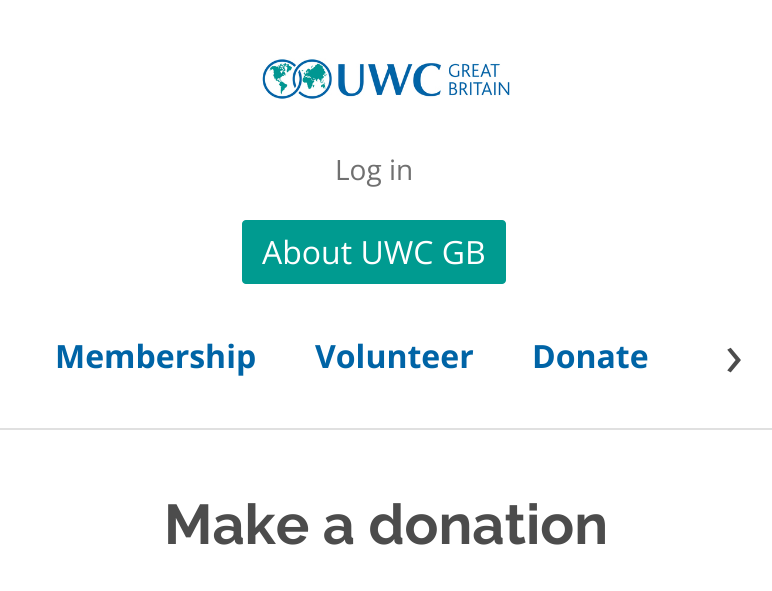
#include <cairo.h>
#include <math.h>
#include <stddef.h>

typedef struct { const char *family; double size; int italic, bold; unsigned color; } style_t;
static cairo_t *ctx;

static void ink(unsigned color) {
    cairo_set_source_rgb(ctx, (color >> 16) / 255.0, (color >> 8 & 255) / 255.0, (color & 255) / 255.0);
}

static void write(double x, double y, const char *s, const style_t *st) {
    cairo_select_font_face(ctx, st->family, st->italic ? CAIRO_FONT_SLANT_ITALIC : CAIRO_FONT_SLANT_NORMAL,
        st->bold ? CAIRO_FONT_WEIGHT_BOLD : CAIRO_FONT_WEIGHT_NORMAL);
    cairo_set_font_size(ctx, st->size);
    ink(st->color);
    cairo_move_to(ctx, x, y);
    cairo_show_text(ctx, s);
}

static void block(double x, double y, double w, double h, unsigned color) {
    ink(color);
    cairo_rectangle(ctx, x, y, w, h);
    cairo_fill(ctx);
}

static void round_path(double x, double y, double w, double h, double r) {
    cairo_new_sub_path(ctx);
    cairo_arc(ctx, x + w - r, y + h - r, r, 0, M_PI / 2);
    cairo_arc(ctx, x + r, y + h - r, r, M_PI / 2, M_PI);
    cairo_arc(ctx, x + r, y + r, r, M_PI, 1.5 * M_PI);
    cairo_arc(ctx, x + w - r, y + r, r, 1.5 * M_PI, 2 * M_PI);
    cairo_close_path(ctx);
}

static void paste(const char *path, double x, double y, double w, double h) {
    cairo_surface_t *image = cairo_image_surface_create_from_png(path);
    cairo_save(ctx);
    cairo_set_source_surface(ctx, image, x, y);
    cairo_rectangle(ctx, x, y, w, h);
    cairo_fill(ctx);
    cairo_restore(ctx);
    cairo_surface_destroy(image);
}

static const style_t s1 = {"Open Sans", 28, 0, 0, 0x707070};
static const style_t s2 = {"Open Sans", 32, 0, 0, 0xffffff};
static const style_t s3 = {"Open Sans", 32, 0, 1, 0x0064a6};
static const style_t s4 = {"Open Sans", 60, 0, 0, 0x4c4c4c};
static const style_t s5 = {"Raleway", 56, 0, 1, 0x4c4c4c};

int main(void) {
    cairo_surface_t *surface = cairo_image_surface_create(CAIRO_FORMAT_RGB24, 772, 591);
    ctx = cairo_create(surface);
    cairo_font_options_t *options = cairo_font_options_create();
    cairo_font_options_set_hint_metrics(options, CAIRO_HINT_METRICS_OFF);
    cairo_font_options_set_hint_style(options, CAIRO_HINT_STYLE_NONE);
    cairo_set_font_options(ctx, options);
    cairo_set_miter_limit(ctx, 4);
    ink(0xffffff);
    cairo_paint(ctx);
    paste("pic1.png", 262, 58, 248, 41);
    write(335, 180, "Log in", &s1);
    ink(0x009b90);
    round_path(242, 220, 264, 64, 4);
    cairo_fill(ctx);
    write(262, 264, "About UWC GB", &s2);
    write(55, 368, "Membership", &s3);
    write(315, 368, "Volunteer", &s3);
    write(532, 368, "Donate", &s3);
    write(725, 376, "›", &s4);
    block(0, 428, 772, 2, 0xe0e0e0);
    write(164, 544, "Make a donation", &s5);
    cairo_surface_write_to_png(surface, "screenshot.png");
    cairo_font_options_destroy(options);
    cairo_destroy(ctx);
    cairo_surface_destroy(surface);
    return 0;
}
